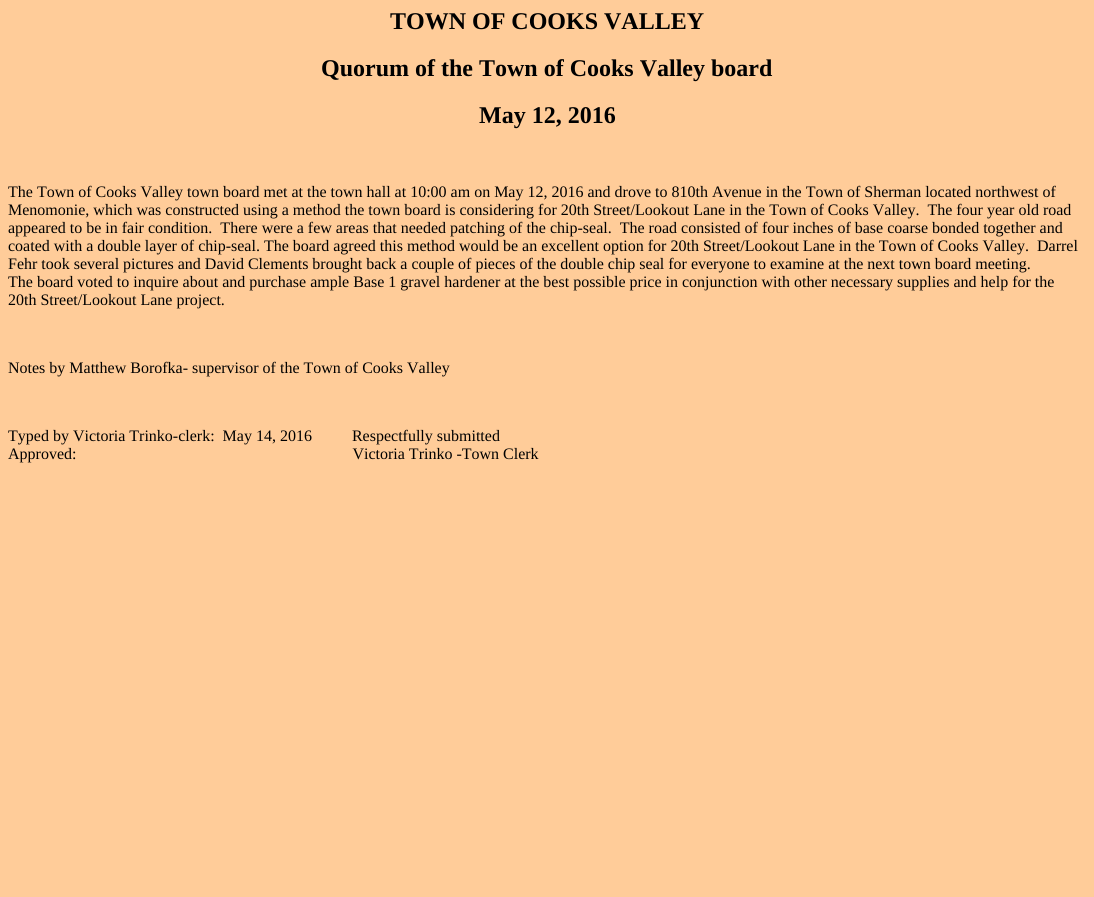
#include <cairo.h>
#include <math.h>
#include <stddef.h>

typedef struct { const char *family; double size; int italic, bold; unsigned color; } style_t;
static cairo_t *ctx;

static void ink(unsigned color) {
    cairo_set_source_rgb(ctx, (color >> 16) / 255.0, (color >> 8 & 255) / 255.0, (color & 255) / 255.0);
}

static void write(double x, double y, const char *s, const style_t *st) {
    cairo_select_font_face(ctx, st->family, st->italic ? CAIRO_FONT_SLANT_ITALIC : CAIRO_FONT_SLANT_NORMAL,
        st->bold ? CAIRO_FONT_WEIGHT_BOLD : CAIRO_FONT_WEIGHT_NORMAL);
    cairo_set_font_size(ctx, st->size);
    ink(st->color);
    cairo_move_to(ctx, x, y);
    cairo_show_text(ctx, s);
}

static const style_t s1 = {"Liberation Serif", 24, 0, 1, 0x000000};
static const style_t s2 = {"Liberation Serif", 16, 0, 0, 0x000000};

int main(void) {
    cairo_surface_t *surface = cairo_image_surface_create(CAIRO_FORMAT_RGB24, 1094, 897);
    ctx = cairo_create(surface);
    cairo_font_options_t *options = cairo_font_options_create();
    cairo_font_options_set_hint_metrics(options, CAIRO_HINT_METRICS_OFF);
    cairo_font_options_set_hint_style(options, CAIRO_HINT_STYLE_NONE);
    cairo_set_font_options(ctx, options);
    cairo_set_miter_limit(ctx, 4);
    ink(0xffcc99);
    cairo_paint(ctx);
    write(390, 29, "TOWN OF COOKS VALLEY", &s1);
    write(321, 76, "Quorum of the Town of Cooks Valley board", &s1);
    write(479, 123, "May 12, 2016", &s1);
    write(8, 197, "The Town of Cooks Valley town board met at the town hall at 10:00 am on May 12, 2016 and drove to 810th Avenue in the Town of Sherman located northwest of", &s2);
    write(8, 215, "Menomonie, which was constructed using a method the town board is considering for 20th Street/Lookout Lane in the Town of Cooks Valley.  The four year old road", &s2);
    write(8, 233, "appeared to be in fair condition.  There were a few areas that needed patching of the chip-seal.  The road consisted of four inches of base coarse bonded together and", &s2);
    write(8, 251, "coated with a double layer of chip-seal. The board agreed this method would be an excellent option for 20th Street/Lookout Lane in the Town of Cooks Valley.  Darrel", &s2);
    write(8, 269, "Fehr took several pictures and David Clements brought back a couple of pieces of the double chip seal for everyone to examine at the next town board meeting.", &s2);
    write(8, 287, "The board voted to inquire about and purchase ample Base 1 gravel hardener at the best possible price in conjunction with other necessary supplies and help for the", &s2);
    write(8, 305, "20th Street/Lookout Lane project.", &s2);
    write(8, 373, "Notes by Matthew Borofka- supervisor of the Town of Cooks Valley", &s2);
    write(8, 441, "Typed by Victoria Trinko-clerk:  May 14, 2016          Respectfully submitted", &s2);
    write(8, 459, "Approved:                                                                     Victoria Trinko -Town Clerk", &s2);
    cairo_surface_write_to_png(surface, "screenshot.png");
    cairo_font_options_destroy(options);
    cairo_destroy(ctx);
    cairo_surface_destroy(surface);
    return 0;
}
